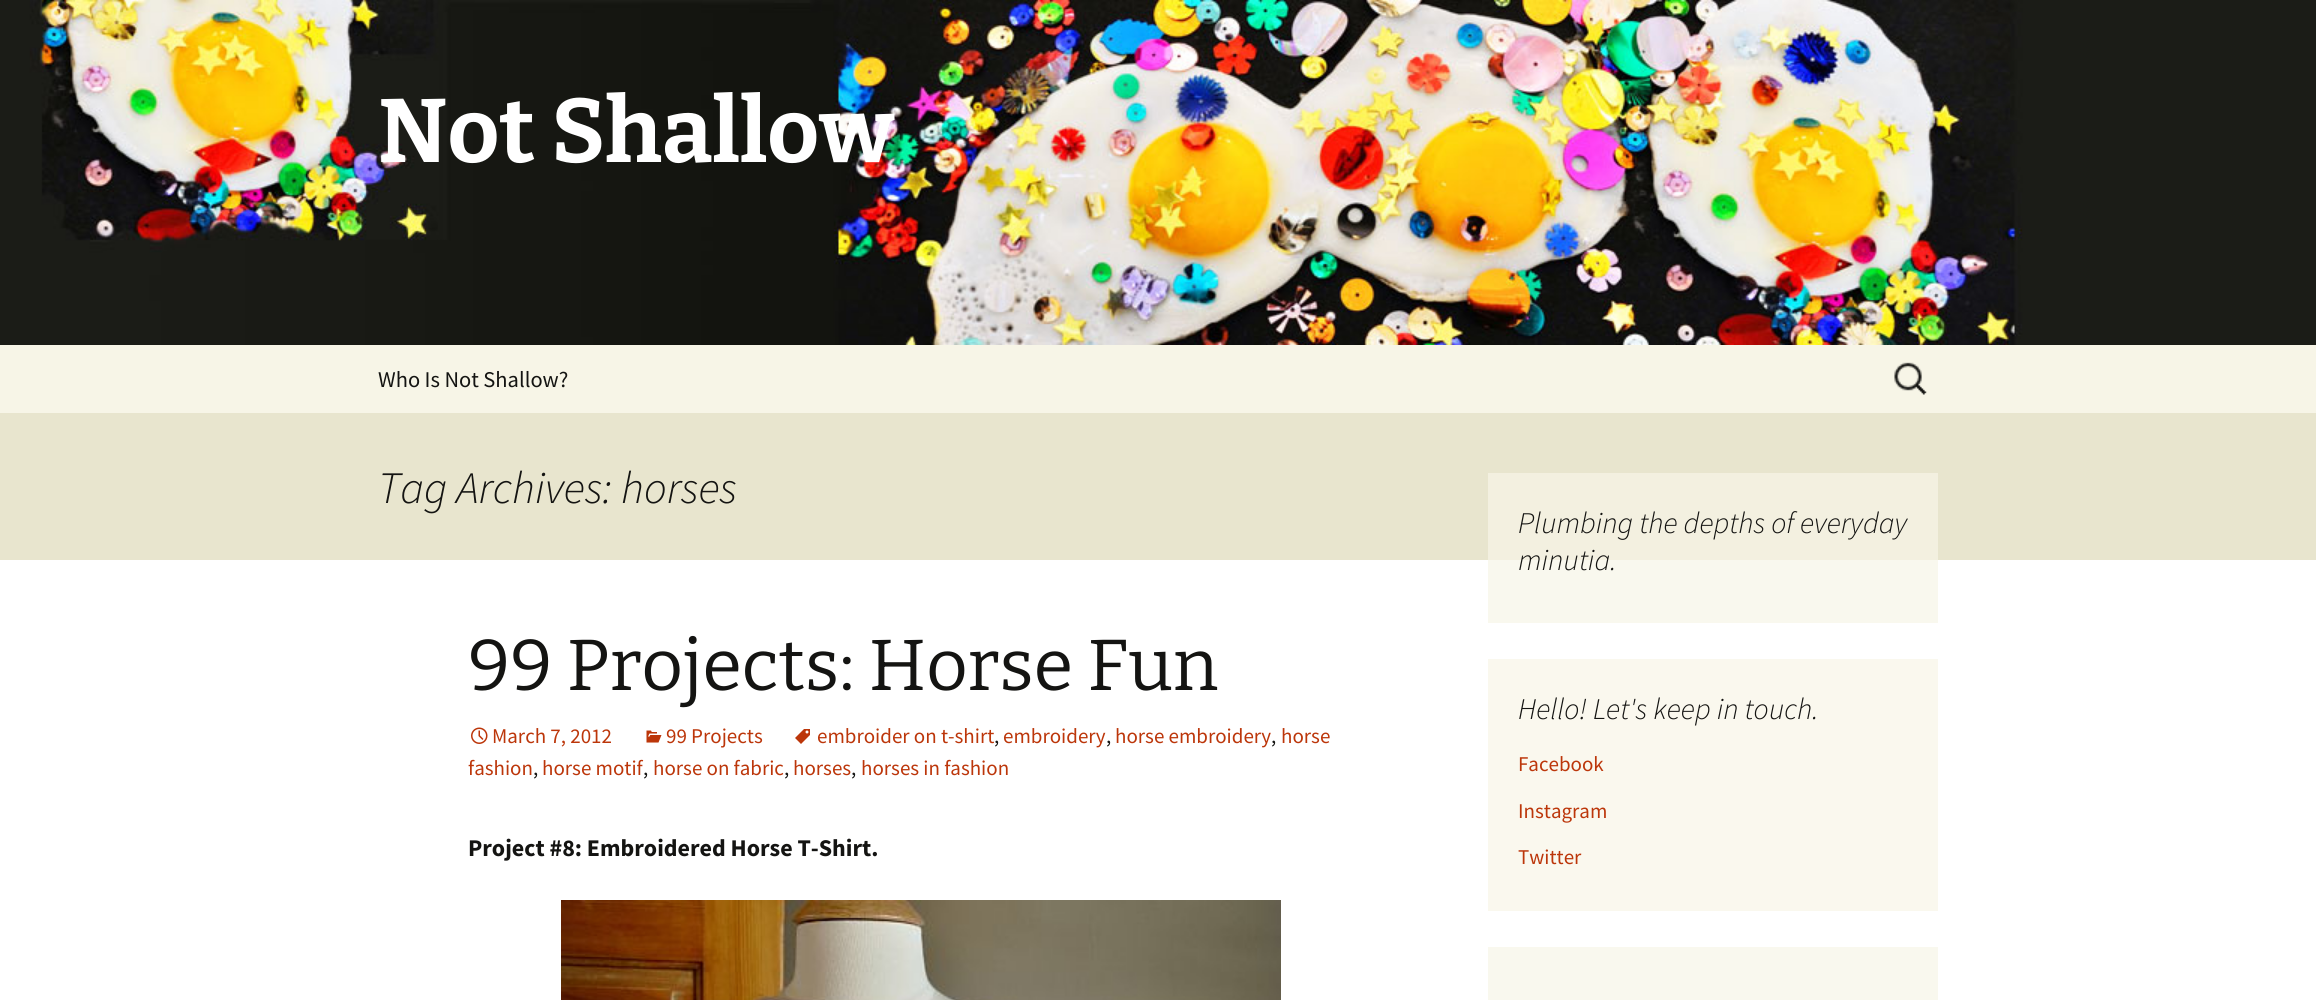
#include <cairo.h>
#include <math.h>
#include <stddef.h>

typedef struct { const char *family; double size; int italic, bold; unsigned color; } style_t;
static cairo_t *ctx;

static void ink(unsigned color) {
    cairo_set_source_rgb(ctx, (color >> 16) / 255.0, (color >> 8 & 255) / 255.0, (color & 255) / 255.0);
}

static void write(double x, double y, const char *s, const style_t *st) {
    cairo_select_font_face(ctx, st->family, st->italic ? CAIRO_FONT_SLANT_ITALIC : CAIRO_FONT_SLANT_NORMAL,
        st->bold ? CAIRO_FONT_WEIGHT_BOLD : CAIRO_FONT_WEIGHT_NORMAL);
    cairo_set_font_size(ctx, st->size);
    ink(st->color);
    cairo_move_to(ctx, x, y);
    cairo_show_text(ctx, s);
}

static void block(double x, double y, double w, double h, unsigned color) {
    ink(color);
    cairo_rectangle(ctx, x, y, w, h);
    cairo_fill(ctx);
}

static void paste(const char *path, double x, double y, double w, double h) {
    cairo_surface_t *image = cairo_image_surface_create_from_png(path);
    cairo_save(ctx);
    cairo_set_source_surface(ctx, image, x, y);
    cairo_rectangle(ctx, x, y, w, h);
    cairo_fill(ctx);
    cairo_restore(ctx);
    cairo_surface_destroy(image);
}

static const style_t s1 = {"Bitter Thin", 90, 0, 0, 0xffffff};
static const style_t s2 = {"Source Sans Pro", 22.5, 0, 0, 0x141412};
static const style_t s3 = {"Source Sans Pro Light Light", 45, 1, 0, 0x141412};
static const style_t s4 = {"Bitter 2 Thin", 72, 0, 0, 0x141412};
static const style_t s5 = {"Source Sans Pro", 21, 0, 0, 0xbc360a};
static const style_t s6 = {"Source Sans Pro", 21, 0, 0, 0x141412};
static const style_t s7 = {"Source Sans Pro", 24, 0, 1, 0x141412};
static const style_t s8 = {"Source Sans Pro Light Light", 30, 1, 0, 0x141412};

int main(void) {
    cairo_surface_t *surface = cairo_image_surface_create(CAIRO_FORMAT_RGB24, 2316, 1000);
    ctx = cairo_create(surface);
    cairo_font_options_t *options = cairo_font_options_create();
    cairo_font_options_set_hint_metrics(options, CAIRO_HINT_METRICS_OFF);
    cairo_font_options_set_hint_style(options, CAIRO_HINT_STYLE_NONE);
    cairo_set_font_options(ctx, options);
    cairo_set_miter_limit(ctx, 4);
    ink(0xffffff);
    cairo_paint(ctx);
    block(1488, 560, 450, 63, 0xf9f8ee);
    paste("pic1.png", 0, 0, 2316, 345);
    write(378, 162, "Not Shallow", &s1);
    block(0, 345, 2316, 68, 0xf7f5e7);
    write(378, 387, "Who Is Not Shallow?", &s2);
    paste("pic2.png", 1894, 362, 33, 33);
    block(0, 413, 2316, 147, 0xe8e5ce);
    block(1488, 473, 450, 87, 0xf3f0e0);
    write(378, 503, "Tag Archives: horses", &s3);
    write(468, 690, "99 Projects: Horse Fun", &s4);
    paste("pic3.png", 795, 729, 15, 15);
    write(817, 743, "embroider on t-shirt", &s5);
    write(994, 743, ",", &s6);
    write(1003, 743, "embroidery", &s5);
    write(1106, 743, ",", &s6);
    write(1115, 743, "horse embroidery", &s5);
    write(1271, 743, ",", &s6);
    write(1281, 743, "horse", &s5);
    write(468, 775, "fashion", &s5);
    write(533, 775, ",", &s6);
    write(542, 775, "horse motif", &s5);
    write(643, 775, ",", &s6);
    write(653, 775, "horse on fabric", &s5);
    write(784, 775, ",", &s6);
    write(793, 775, "horses", &s5);
    write(851, 775, ",", &s6);
    write(861, 775, "horses in fashion", &s5);
    paste("pic4.png", 471, 727, 17, 17);
    write(492, 743, "March 7, 2012", &s5);
    paste("pic5.png", 646, 730, 16, 13);
    write(666, 743, "99 Projects", &s5);
    write(468, 856, "Project #8: Embroidered Horse T-Shirt.", &s7);
    paste("pic6.png", 561, 900, 720, 100);
    write(1518, 533, "Plumbing the depths of everyday", &s8);
    write(1518, 570, "minutia.", &s8);
    block(1488, 659, 450, 252, 0xfaf8ee);
    write(1518, 719, "Hello! Let's keep in touch.", &s8);
    write(1518, 771, "Facebook", &s5);
    write(1518, 818, "Instagram", &s5);
    write(1518, 864, "Twitter", &s5);
    block(1488, 947, 450, 53, 0xf9f8ee);
    cairo_surface_write_to_png(surface, "screenshot.png");
    cairo_font_options_destroy(options);
    cairo_destroy(ctx);
    cairo_surface_destroy(surface);
    return 0;
}
